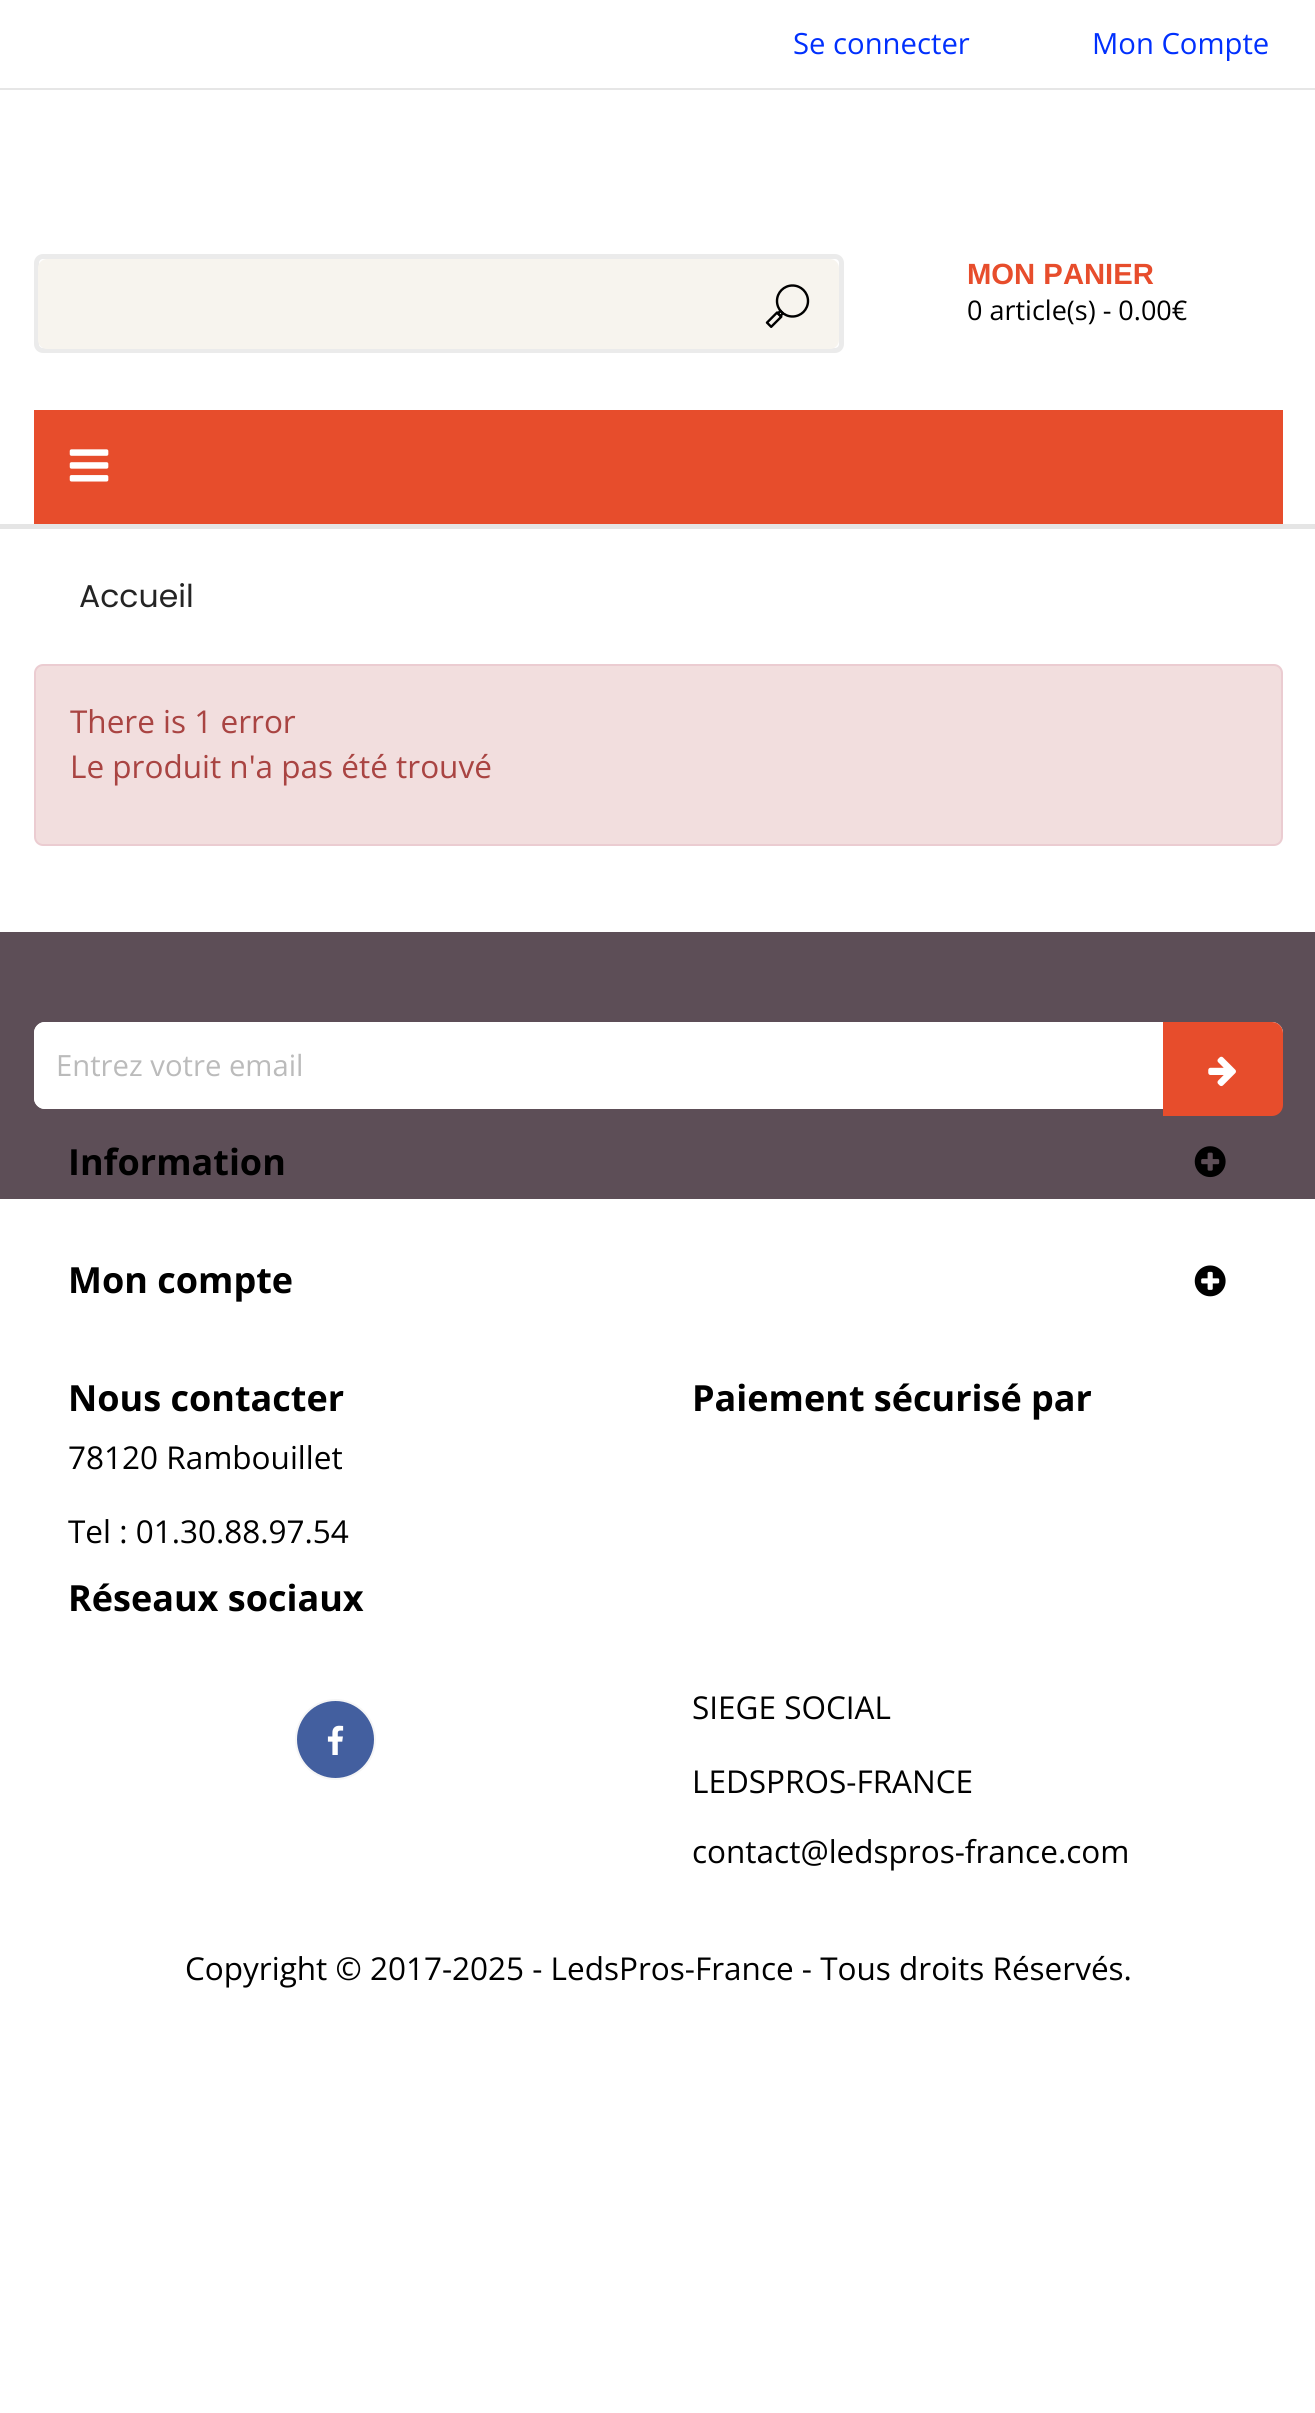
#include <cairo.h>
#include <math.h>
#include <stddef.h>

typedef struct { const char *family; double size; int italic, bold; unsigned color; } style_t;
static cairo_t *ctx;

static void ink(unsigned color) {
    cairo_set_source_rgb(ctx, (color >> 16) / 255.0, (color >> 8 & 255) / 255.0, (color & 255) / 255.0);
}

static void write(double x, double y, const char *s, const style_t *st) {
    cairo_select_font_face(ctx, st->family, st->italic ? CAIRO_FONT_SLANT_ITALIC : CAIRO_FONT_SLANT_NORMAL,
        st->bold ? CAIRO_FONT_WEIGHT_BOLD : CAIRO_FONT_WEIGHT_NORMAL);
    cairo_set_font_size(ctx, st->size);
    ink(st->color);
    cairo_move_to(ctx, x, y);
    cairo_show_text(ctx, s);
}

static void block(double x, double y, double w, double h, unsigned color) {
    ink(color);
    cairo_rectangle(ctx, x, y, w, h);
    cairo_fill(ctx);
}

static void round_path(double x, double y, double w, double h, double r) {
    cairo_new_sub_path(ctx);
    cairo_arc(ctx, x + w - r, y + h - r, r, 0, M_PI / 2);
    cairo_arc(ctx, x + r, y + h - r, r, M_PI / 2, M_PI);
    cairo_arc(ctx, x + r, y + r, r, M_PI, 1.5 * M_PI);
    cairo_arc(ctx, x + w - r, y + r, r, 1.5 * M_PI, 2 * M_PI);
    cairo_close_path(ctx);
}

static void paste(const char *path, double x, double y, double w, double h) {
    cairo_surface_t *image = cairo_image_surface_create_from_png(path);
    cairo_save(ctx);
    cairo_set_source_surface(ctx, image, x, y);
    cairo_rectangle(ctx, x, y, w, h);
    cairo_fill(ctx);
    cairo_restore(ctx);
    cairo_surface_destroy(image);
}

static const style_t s1 = {"Open Sans", 29.25, 0, 0, 0x0130fd};
static const style_t s2 = {"Liberation Sans", 29.25, 0, 1, 0xe74d2c};
static const style_t s3 = {"Open Sans", 27, 0, 0, 0x000000};
static const style_t s4 = {"Poppins", 31.5, 0, 0, 0x242424};
static const style_t s5 = {"Open Sans", 31.5, 0, 0, 0xa94442};
static const style_t s6 = {"Open Sans", 29.25, 0, 0, 0xbbbbbb};
static const style_t s7 = {"Open Sans", 36, 0, 1, 0x000000};
static const style_t s8 = {"Open Sans", 31.5, 0, 0, 0x000000};

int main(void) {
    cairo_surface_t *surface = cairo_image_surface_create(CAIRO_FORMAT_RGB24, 1315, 2413);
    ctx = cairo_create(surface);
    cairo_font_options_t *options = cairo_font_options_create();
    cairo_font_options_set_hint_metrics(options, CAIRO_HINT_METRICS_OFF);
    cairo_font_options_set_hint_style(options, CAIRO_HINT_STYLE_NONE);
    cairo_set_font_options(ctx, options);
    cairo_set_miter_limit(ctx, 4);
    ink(0xffffff);
    cairo_paint(ctx);
    block(0, 88, 1315, 2, 0xe6e6e6);
    write(793, 54, "Se connecter", &s1);
    write(1092, 54, "Mon Compte", &s1);
    block(0, 524, 1315, 5, 0xe5e5e5);
    round_path(36.5, 256.5, 805, 94, 6.5);
    ink(0xebebeb);
    cairo_set_line_width(ctx, 5);
    cairo_stroke(ctx);
    ink(0xf7f4ee);
    round_path(38, 259, 801, 90, 9);
    cairo_fill(ctx);
    paste("pic1.png", 765, 284, 45, 44);
    write(967, 284, "MON PANIER", &s2);
    write(967, 320, "0 article(s) - 0.00€", &s3);
    block(34, 410, 1249, 114, 0xe74d2c);
    paste("pic2.png", 69, 449, 40, 33);
    write(79, 607, "Accueil", &s4);
    ink(0xf2dede);
    round_path(35, 665, 1247, 180, 8);
    cairo_fill_preserve(ctx);
    ink(0xebccd1);
    cairo_set_line_width(ctx, 2);
    cairo_stroke(ctx);
    write(70, 733, "There is 1 error", &s5);
    write(70, 778, "Le produit n'a pas été trouvé", &s5);
    block(0, 932, 1315, 267, 0x5d4e57);
    ink(0xffffff);
    round_path(34, 1022, 1249, 87, 11);
    cairo_fill(ctx);
    round_path(34, 1022, 848, 87, 11);
    cairo_fill(ctx);
    write(56, 1076, "Entrez votre email", &s6);
    ink(0xe74d2c);
    cairo_new_path(ctx);
    cairo_move_to(ctx, 1163, 1022);
    cairo_line_to(ctx, 1272, 1022);
    cairo_curve_to(ctx, 1278, 1022, 1283, 1027, 1283, 1033);
    cairo_line_to(ctx, 1283, 1105);
    cairo_curve_to(ctx, 1283, 1111, 1278, 1116, 1272, 1116);
    cairo_line_to(ctx, 1163, 1116);
    cairo_close_path(ctx);
    cairo_fill(ctx);
    paste("pic3.png", 1208, 1056, 28, 31);
    write(68, 1175, "Information", &s7);
    paste("pic4.png", 1194, 1146, 32, 32);
    write(68, 1293, "Mon compte", &s7);
    paste("pic5.png", 1194, 1265, 32, 32);
    write(68, 1411, "Nous contacter", &s7);
    write(68, 1469, "78120 Rambouillet", &s8);
    write(68, 1543, "Tel : 01.30.88.97.54", &s8);
    write(68, 1611, "Réseaux sociaux", &s7);
    ink(0x435f9f);
    cairo_new_path(ctx);
    cairo_arc(ctx, 335.5, 1739.5, 39.5, 0, 2 * M_PI);
    cairo_fill_preserve(ctx);
    ink(0xf6f6f6);
    cairo_stroke(ctx);
    paste("pic6.png", 327, 1725, 17, 30);
    write(692, 1411, "Paiement sécurisé par", &s7);
    write(692, 1719, "SIEGE SOCIAL", &s8);
    write(692, 1793, "LEDSPROS-FRANCE", &s8);
    write(692, 1863, "contact@ledspros-france.com", &s8);
    write(185, 1980, "Copyright © 2017-2025 - LedsPros-France - Tous droits Réservés.", &s8);
    cairo_surface_write_to_png(surface, "screenshot.png");
    cairo_font_options_destroy(options);
    cairo_destroy(ctx);
    cairo_surface_destroy(surface);
    return 0;
}
